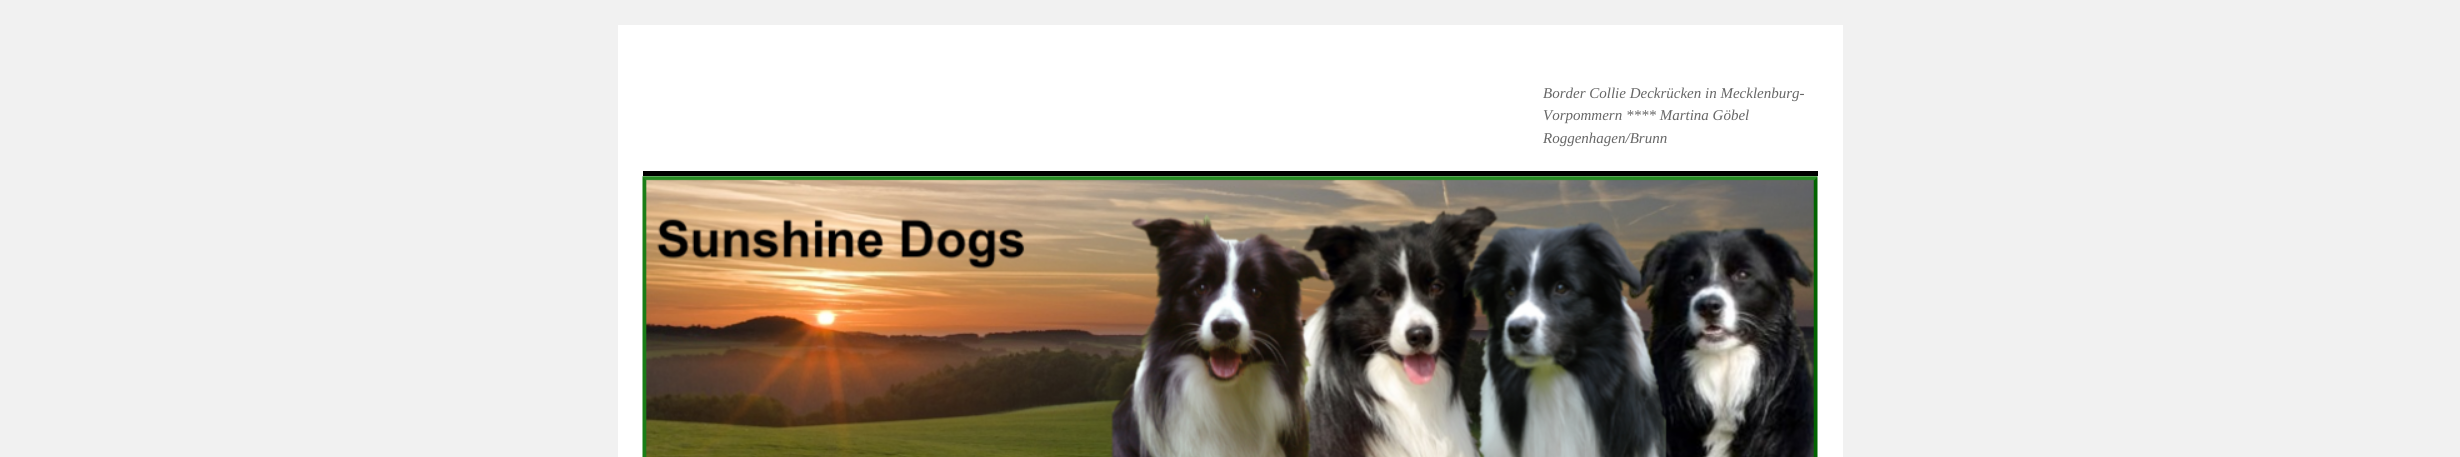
#include <cairo.h>
#include <math.h>
#include <stddef.h>

typedef struct { const char *family; double size; int italic, bold; unsigned color; } style_t;
static cairo_t *ctx;

static void ink(unsigned color) {
    cairo_set_source_rgb(ctx, (color >> 16) / 255.0, (color >> 8 & 255) / 255.0, (color & 255) / 255.0);
}

static void write(double x, double y, const char *s, const style_t *st) {
    cairo_select_font_face(ctx, st->family, st->italic ? CAIRO_FONT_SLANT_ITALIC : CAIRO_FONT_SLANT_NORMAL,
        st->bold ? CAIRO_FONT_WEIGHT_BOLD : CAIRO_FONT_WEIGHT_NORMAL);
    cairo_set_font_size(ctx, st->size);
    ink(st->color);
    cairo_move_to(ctx, x, y);
    cairo_show_text(ctx, s);
}

static void block(double x, double y, double w, double h, unsigned color) {
    ink(color);
    cairo_rectangle(ctx, x, y, w, h);
    cairo_fill(ctx);
}

static void paste(const char *path, double x, double y, double w, double h) {
    cairo_surface_t *image = cairo_image_surface_create_from_png(path);
    cairo_save(ctx);
    cairo_set_source_surface(ctx, image, x, y);
    cairo_rectangle(ctx, x, y, w, h);
    cairo_fill(ctx);
    cairo_restore(ctx);
    cairo_surface_destroy(image);
}

static const style_t s1 = {"Liberation Serif", 15, 1, 0, 0x666666};

int main(void) {
    cairo_surface_t *surface = cairo_image_surface_create(CAIRO_FORMAT_RGB24, 2460, 457);
    ctx = cairo_create(surface);
    cairo_font_options_t *options = cairo_font_options_create();
    cairo_font_options_set_hint_metrics(options, CAIRO_HINT_METRICS_OFF);
    cairo_font_options_set_hint_style(options, CAIRO_HINT_STYLE_NONE);
    cairo_set_font_options(ctx, options);
    cairo_set_miter_limit(ctx, 4);
    ink(0xf1f1f1);
    cairo_paint(ctx);
    block(618, 25, 1225, 432, 0xffffff);
    write(1543, 98, "Border Collie Deckrücken in Mecklenburg-", &s1);
    write(1543, 120, "Vorpommern **** Martina Göbel", &s1);
    write(1543, 143, "Roggenhagen/Brunn", &s1);
    block(643, 171, 1175, 5, 0x000000);
    paste("pic1.png", 642, 176, 1176, 281);
    cairo_surface_write_to_png(surface, "screenshot.png");
    cairo_font_options_destroy(options);
    cairo_destroy(ctx);
    cairo_surface_destroy(surface);
    return 0;
}
